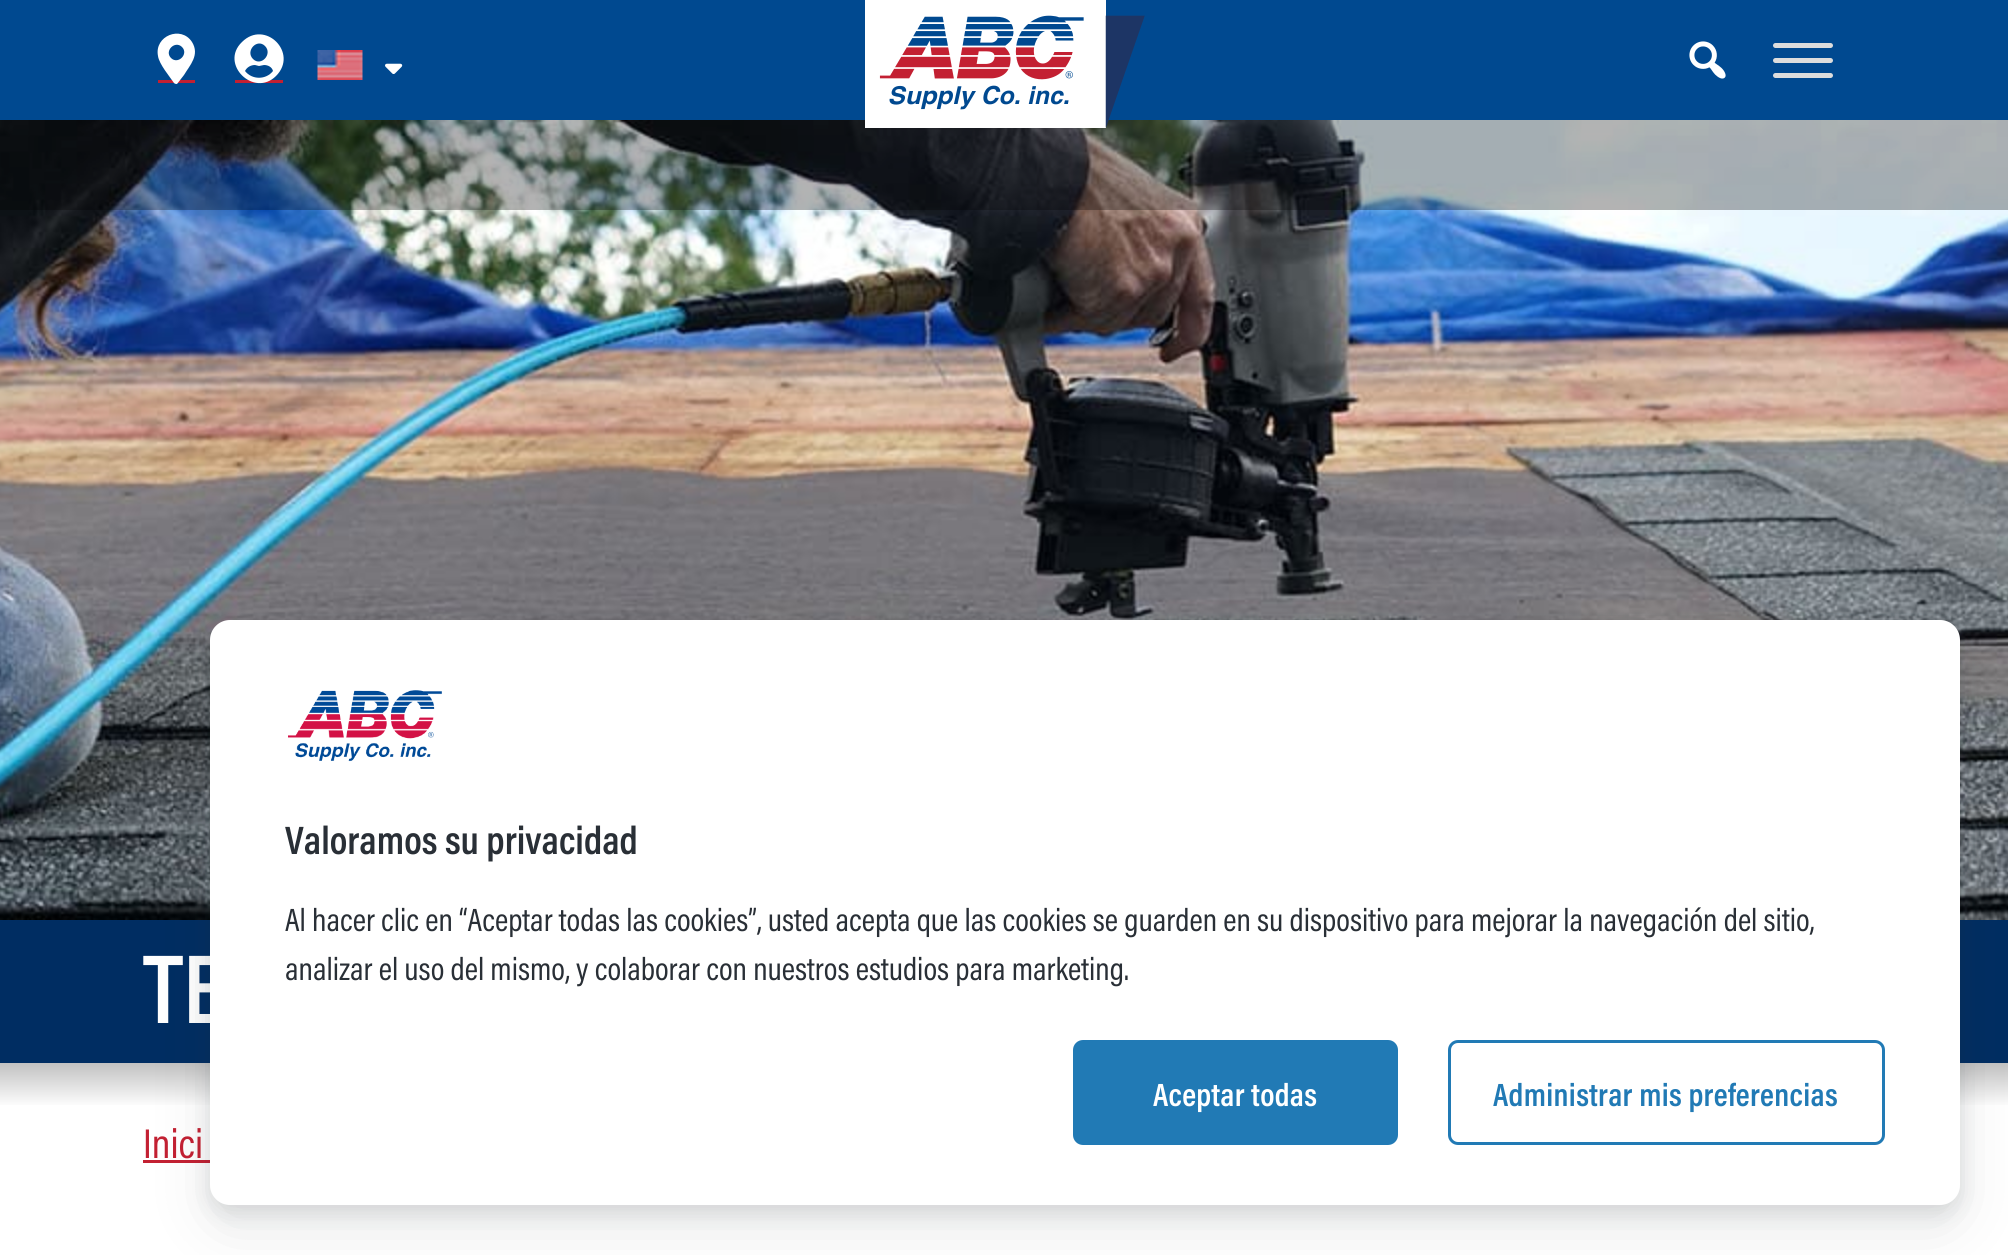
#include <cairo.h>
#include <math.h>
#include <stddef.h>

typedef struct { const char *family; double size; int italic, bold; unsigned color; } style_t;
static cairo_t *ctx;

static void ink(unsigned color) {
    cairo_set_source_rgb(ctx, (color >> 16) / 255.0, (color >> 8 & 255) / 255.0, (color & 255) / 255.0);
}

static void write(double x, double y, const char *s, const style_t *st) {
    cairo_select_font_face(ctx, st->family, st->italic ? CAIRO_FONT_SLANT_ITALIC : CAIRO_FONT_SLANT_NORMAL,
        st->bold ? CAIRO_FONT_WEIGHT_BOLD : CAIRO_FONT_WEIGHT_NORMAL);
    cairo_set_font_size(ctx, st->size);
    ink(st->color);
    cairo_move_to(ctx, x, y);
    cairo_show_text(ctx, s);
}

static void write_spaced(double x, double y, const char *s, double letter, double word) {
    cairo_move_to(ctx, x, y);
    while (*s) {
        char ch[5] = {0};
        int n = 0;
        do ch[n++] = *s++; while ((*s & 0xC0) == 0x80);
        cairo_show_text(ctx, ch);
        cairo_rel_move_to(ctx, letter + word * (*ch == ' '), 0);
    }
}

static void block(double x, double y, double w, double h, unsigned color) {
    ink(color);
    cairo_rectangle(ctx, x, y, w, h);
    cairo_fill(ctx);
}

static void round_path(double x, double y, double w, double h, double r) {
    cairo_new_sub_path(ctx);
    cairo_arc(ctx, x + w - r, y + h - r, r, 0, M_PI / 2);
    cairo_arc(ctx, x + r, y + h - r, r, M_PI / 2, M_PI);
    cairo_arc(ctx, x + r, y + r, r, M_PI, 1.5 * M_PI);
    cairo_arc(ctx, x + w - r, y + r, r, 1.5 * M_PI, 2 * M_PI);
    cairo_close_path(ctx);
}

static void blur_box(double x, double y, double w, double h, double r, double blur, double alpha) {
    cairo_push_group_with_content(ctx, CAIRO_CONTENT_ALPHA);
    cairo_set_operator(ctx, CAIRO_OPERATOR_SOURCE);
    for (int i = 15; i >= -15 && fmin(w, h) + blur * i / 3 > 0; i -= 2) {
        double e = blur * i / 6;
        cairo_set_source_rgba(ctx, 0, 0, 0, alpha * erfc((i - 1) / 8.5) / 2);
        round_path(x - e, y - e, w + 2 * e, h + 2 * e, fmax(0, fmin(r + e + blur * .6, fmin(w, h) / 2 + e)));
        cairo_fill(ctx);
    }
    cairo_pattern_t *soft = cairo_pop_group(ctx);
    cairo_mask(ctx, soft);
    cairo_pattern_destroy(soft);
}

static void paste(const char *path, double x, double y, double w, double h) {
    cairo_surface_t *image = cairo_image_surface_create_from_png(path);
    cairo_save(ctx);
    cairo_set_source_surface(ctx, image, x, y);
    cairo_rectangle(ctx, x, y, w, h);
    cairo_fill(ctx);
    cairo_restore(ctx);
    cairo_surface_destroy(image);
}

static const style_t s1 = {"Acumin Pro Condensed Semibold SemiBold", 99, 0, 0, 0xffffff};
static const style_t s2 = {"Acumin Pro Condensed", 42, 0, 0, 0xc32032};
static const style_t s3 = {"Acumin Pro Condensed Semibold SemiBold", 40, 0, 0, 0x292f36};
static const style_t s4 = {"Acumin Pro Condensed", 32.5, 0, 0, 0x292f36};

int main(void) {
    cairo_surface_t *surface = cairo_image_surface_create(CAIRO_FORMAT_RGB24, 2008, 1255);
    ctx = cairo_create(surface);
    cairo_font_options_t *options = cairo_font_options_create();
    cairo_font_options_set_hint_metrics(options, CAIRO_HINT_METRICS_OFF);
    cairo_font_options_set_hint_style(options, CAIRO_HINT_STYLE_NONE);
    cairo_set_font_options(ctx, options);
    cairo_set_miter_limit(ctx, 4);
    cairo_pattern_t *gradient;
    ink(0xffffff);
    cairo_paint(ctx);
    block(0, 0, 2008, 120, 0x004990);
    block(158, 80, 37, 3, 0xc32032);
    ink(0xffffff);
    cairo_new_path(ctx);
    cairo_move_to(ctx, 174, 83);
    cairo_curve_to(ctx, 170, 77, 159, 64, 158, 56);
    cairo_curve_to(ctx, 154, 36, 181, 25, 192, 42);
    cairo_curve_to(ctx, 200, 55, 190, 65, 184, 75);
    cairo_line_to(ctx, 177, 84);
    cairo_curve_to(ctx, 176, 84, 175, 84, 174, 83);
    cairo_close_path(ctx);
    cairo_move_to(ctx, 171, 58);
    cairo_curve_to(ctx, 178, 65, 189, 54, 182, 47);
    cairo_curve_to(ctx, 175, 40, 164, 51, 171, 58);
    cairo_close_path(ctx);
    cairo_fill(ctx);
    block(235, 80, 48, 3, 0xc32032);
    ink(0xffffff);
    cairo_new_path(ctx);
    cairo_move_to(ctx, 242, 42);
    cairo_curve_to(ctx, 265, 19, 299, 53, 276, 76);
    cairo_curve_to(ctx, 254, 98, 219, 64, 242, 42);
    cairo_close_path(ctx);
    cairo_move_to(ctx, 265, 46);
    cairo_curve_to(ctx, 257, 38, 245, 51, 253, 59);
    cairo_curve_to(ctx, 261, 67, 273, 54, 265, 46);
    cairo_close_path(ctx);
    cairo_move_to(ctx, 245, 71);
    cairo_curve_to(ctx, 252, 80, 266, 80, 273, 71);
    cairo_curve_to(ctx, 272, 67, 268, 65, 264, 65);
    cairo_line_to(ctx, 259, 66);
    cairo_line_to(ctx, 255, 65);
    cairo_curve_to(ctx, 251, 65, 247, 67, 245, 71);
    cairo_close_path(ctx);
    cairo_fill(ctx);
    paste("pic1.png", 317, 50, 46, 30);
    paste("pic2.png", 385, 63, 18, 11);
    paste("pic5.png", 0, 120, 2008, 800);
    cairo_set_source_rgba(ctx, 0, 0, 0, 0.3);
    cairo_rectangle(ctx, 0, 120, 2008, 90);
    cairo_fill(ctx);
    paste("pic3.png", 865, 0, 280, 128);
    paste("pic4.png", 1689, 41, 37, 38);
    ink(0xdddddd);
    round_path(1773, 43, 60, 5, 2.5);
    cairo_fill(ctx);
    round_path(1773, 58, 60, 5, 2.5);
    cairo_fill(ctx);
    round_path(1773, 73, 60, 5, 2.5);
    cairo_fill(ctx);
    block(0, 920, 2008, 143, 0x002d62);
    write(143, 1023, "TE", &s1);
    gradient = cairo_pattern_create_linear(1005, 1062, 1005, 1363);
    cairo_pattern_add_color_stop_rgba(gradient, 0, 0.753, 0.753, 0.753, 1);
    cairo_pattern_add_color_stop_rgba(gradient, 0.15, 1, 1, 1, 1);
    cairo_set_source(ctx, gradient);
    cairo_pattern_destroy(gradient);
    cairo_rectangle(ctx, 0, 1063, 2008, 42);
    cairo_fill(ctx);
    write(143, 1158, "Inici", &s2);
    block(143, 1160, 67, 3, 0xc32032);
    ink(0x292f36);
    blur_box(210, 628, 1750, 585, 20, 10, 0.13);
    blur_box(210, 640, 1750, 585, 20, 30, 0.12);
    ink(0xffffff);
    round_path(210, 620, 1750, 585, 20);
    cairo_fill(ctx);
    paste("pic6.png", 288, 690, 154, 72);
    write(285, 854, "Valoramos su privacidad", &s3);
    write(285, 931, "Al hacer clic en “Aceptar todas las cookies”, usted acepta que las cookies se guarden en su dispositivo para mejorar la navegación del sitio,", &s4);
    write(285, 980, "analizar el uso del mismo, y colaborar con nuestros estudios para marketing.", &s4);
    ink(0x217ab5);
    round_path(1074.5, 1041.5, 322, 102, 8.5);
    cairo_fill_preserve(ctx);
    cairo_set_line_width(ctx, 3);
    cairo_stroke(ctx);
    cairo_select_font_face(ctx, "Acumin Pro Condensed Semibold SemiBold", CAIRO_FONT_SLANT_NORMAL, CAIRO_FONT_WEIGHT_NORMAL);
    ink(0xffffff);
    write_spaced(1153, 1106, "Aceptar todas", 0.3, 0);
    round_path(1449.5, 1041.5, 434, 102, 8.5);
    ink(0x217ab5);
    cairo_stroke(ctx);
    write_spaced(1493, 1106, "Administrar mis preferencias", 0.3, 0);
    cairo_surface_write_to_png(surface, "screenshot.png");
    cairo_font_options_destroy(options);
    cairo_destroy(ctx);
    cairo_surface_destroy(surface);
    return 0;
}
